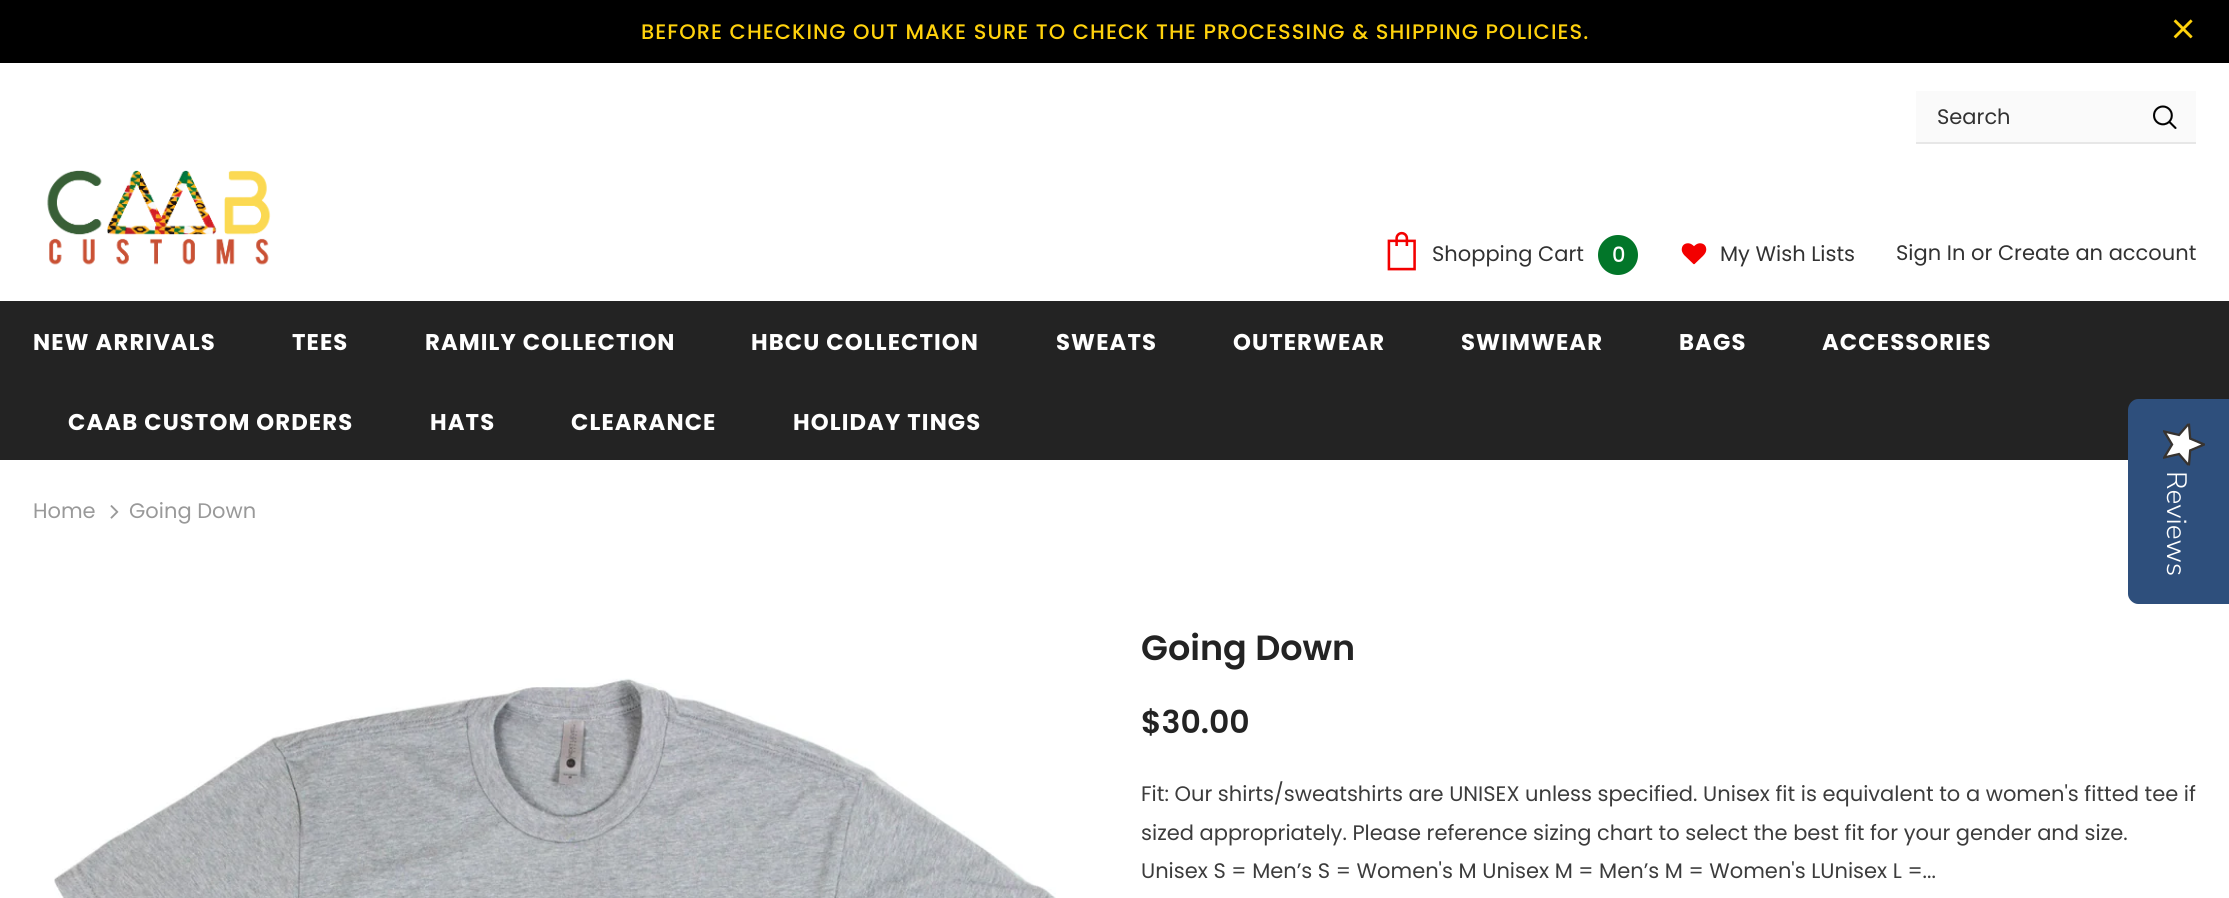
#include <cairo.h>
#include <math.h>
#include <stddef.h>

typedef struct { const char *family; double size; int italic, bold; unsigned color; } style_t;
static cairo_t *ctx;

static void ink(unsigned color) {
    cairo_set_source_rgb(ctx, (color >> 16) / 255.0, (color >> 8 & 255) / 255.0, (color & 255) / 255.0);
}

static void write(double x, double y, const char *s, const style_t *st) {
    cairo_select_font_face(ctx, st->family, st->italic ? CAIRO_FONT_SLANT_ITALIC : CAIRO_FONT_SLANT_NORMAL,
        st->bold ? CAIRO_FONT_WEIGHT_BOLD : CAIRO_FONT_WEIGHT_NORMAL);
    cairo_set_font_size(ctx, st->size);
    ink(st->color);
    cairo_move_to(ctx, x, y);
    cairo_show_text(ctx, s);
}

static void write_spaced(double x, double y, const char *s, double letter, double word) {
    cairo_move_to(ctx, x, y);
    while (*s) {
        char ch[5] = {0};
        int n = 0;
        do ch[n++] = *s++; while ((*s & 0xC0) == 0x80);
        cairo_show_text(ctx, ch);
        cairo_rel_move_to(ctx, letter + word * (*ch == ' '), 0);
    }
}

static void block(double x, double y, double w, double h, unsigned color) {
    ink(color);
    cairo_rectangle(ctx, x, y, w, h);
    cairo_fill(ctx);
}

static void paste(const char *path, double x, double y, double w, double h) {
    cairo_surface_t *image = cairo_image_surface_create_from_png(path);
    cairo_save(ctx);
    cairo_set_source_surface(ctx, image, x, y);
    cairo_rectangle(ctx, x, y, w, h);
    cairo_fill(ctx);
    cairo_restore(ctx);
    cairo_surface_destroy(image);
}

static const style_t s1 = {"Poppins", 21, 0, 0, 0x323232};
static const style_t s2 = {"Poppins Medium", 21, 0, 0, 0xffffff};
static const style_t s3 = {"Nunito Sans Light", 28, 0, 0, 0xffffff};
static const style_t s4 = {"Poppins", 21, 0, 0, 0x999999};
static const style_t s5 = {"Poppins SemiBold", 35, 0, 0, 0x232323};
static const style_t s6 = {"Poppins SemiBold", 31.5, 0, 0, 0x232323};
static const style_t s7 = {"Poppins", 21, 0, 0, 0x3c3c3c};

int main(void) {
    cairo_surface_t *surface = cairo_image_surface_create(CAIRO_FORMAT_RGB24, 2229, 898);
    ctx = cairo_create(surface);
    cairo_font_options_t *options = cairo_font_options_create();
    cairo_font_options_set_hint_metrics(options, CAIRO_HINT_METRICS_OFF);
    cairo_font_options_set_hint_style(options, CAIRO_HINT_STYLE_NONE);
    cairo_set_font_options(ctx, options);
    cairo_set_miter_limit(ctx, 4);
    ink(0xffffff);
    cairo_paint(ctx);
    block(0, 0, 2229, 63, 0x000000);
    cairo_select_font_face(ctx, "Poppins Medium", CAIRO_FONT_SLANT_NORMAL, CAIRO_FONT_WEIGHT_NORMAL);
    cairo_set_font_size(ctx, 21);
    ink(0xffd20c);
    write_spaced(641, 39, "BEFORE CHECKING OUT MAKE SURE TO CHECK THE PROCESSING & SHIPPING POLICIES.", 1.05, 0);
    paste("pic1.png", 2173, 19, 20, 20);
    block(1916, 91, 280, 51, 0xfafafa);
    block(1916, 142, 280, 2, 0xe7e7e7);
    write(1937, 124, "Search", &s1);
    paste("pic2.png", 2153, 105, 24, 24);
    paste("pic3.png", 47, 170, 224, 95);
    paste("pic4.png", 1387, 231, 29, 40);
    write(1432, 261, "Shopping Cart", &s1);
    ink(0x027629);
    cairo_new_path(ctx);
    cairo_arc(ctx, 1618, 255, 20, 0, 2 * M_PI);
    cairo_fill(ctx);
    write(1612, 262, "0", &s2);
    paste("pic5.png", 1681, 243, 26, 22);
    write(1720, 261, "My Wish Lists", &s1);
    write(1896, 260, "Sign In", &s1);
    write(1971, 260, "or Create an account", &s1);
    block(0, 301, 2229, 159, 0x232323);
    cairo_select_font_face(ctx, "Poppins", CAIRO_FONT_SLANT_NORMAL, CAIRO_FONT_WEIGHT_BOLD);
    cairo_set_font_size(ctx, 22.75);
    ink(0xffffff);
    write_spaced(33, 350, "NEW ARRIVALS", 1.1, 0);
    write_spaced(292, 350, "TEES", 1.1, 0);
    write_spaced(425, 350, "RAMILY COLLECTION", 1.1, 0);
    write_spaced(751, 350, "HBCU COLLECTION", 1.1, 0);
    write_spaced(1056, 350, "SWEATS", 1.1, 0);
    write_spaced(1233, 350, "OUTERWEAR", 1.1, 0);
    write_spaced(1461, 350, "SWIMWEAR", 1.1, 0);
    write_spaced(1679, 350, "BAGS", 1.1, 0);
    write_spaced(1822, 350, "ACCESSORIES", 1.1, 0);
    write_spaced(68, 430, "CAAB CUSTOM ORDERS", 1.1, 0);
    write_spaced(430, 430, "HATS", 1.1, 0);
    write_spaced(571, 430, "CLEARANCE", 1.1, 0);
    write_spaced(793, 430, "HOLIDAY TINGS", 1.1, 0);
    ink(0x2e4f7c);
    cairo_new_path(ctx);
    cairo_move_to(ctx, 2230, 399);
    cairo_line_to(ctx, 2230, 604);
    cairo_line_to(ctx, 2138, 604);
    cairo_curve_to(ctx, 2133, 604, 2128, 599, 2128, 594);
    cairo_line_to(ctx, 2128, 410);
    cairo_curve_to(ctx, 2128, 404, 2133, 399, 2138, 399);
    cairo_close_path(ctx);
    cairo_fill(ctx);
    paste("pic6.png", 2163, 423, 42, 43);
    cairo_save(ctx);
    cairo_translate(ctx, 2167, 471);
    cairo_rotate(ctx, 90 * M_PI / 180);
    write(0, 0, "Reviews", &s3);
    cairo_restore(ctx);
    write(33, 518, "Home", &s4);
    paste("pic7.png", 110, 505, 9, 14);
    write(129, 518, "Going Down", &s4);
    paste("pic8.png", 54, 678, 1002, 220);
    write(1141, 660, "Going Down", &s5);
    write(1141, 733, "$30.00", &s6);
    write(1141, 801, "Fit: Our shirts/sweatshirts are UNISEX unless specified. Unisex fit is equivalent to a women's fitted tee if", &s7);
    write(1141, 840, "sized appropriately. Please reference sizing chart to select the best fit for your gender and size.", &s7);
    write(1141, 878, "Unisex S = Men’s S = Women's M Unisex M = Men’s M = Women's LUnisex L =...", &s7);
    cairo_surface_write_to_png(surface, "screenshot.png");
    cairo_font_options_destroy(options);
    cairo_destroy(ctx);
    cairo_surface_destroy(surface);
    return 0;
}
